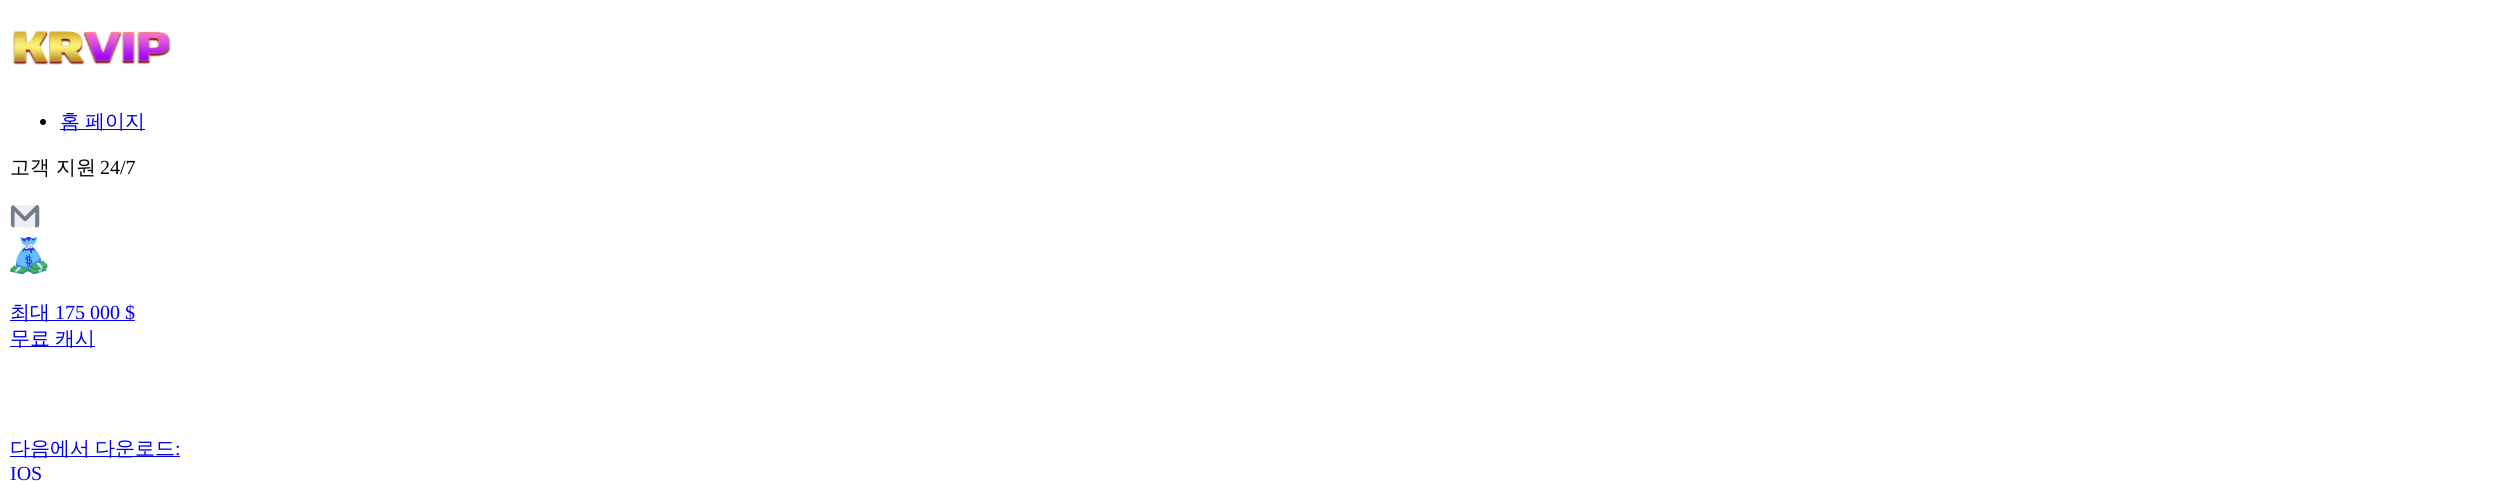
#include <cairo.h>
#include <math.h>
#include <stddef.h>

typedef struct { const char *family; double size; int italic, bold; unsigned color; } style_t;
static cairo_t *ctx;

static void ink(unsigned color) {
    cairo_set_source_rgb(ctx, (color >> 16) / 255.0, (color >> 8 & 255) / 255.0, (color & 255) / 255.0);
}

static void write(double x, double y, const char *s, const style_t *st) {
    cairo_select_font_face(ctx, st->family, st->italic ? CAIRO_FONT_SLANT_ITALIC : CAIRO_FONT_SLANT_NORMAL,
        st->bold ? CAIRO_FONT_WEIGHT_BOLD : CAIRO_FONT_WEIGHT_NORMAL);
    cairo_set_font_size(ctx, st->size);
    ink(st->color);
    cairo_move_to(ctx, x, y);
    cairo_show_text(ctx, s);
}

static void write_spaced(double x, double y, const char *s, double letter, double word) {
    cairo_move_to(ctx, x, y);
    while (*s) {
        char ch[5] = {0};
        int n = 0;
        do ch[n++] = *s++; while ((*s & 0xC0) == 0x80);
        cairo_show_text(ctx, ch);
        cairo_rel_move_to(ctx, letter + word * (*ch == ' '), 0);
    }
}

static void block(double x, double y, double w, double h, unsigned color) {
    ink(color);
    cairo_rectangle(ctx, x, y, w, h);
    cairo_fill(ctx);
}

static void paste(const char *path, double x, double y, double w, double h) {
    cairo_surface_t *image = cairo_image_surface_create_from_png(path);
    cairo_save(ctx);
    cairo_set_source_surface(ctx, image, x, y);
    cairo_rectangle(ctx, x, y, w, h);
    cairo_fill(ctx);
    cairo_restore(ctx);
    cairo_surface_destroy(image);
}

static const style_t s1 = {"WenQuanYi Zen Hei Medium", 20, 0, 0, 0x000000};
static const style_t s2 = {"Liberation Serif", 20, 0, 0, 0x000000};
static const style_t s3 = {"WenQuanYi Zen Hei Medium", 20, 0, 0, 0x0000ee};
static const style_t s4 = {"Liberation Serif", 20, 0, 0, 0x0000ee};

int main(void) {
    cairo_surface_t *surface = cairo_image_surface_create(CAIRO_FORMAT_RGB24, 2508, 481);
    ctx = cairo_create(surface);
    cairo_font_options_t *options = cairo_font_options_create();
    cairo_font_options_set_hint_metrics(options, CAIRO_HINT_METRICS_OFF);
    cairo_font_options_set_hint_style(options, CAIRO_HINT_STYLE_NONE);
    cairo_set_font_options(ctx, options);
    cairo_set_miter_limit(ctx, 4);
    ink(0xffffff);
    cairo_paint(ctx);
    paste("pic1.png", 13, 31, 158, 34);
    ink(0x000000);
    cairo_arc(ctx, 43, 122, 3, 0, 2 * M_PI);
    cairo_fill(ctx);
    block(60, 129, 85, 1, 0x0000ee);
    cairo_select_font_face(ctx, "WenQuanYi Zen Hei Medium", CAIRO_FONT_SLANT_NORMAL, CAIRO_FONT_WEIGHT_NORMAL);
    cairo_set_font_size(ctx, 20);
    write_spaced(60, 128, "홈 페이지", 0, -1);
    write(10, 174, "고객 지원", &s1);
    write(100, 174, "24/7", &s2);
    paste("pic2.png", 10, 205, 30, 23);
    paste("pic3.png", 10, 237, 38, 37);
    block(10, 320, 125, 1, 0x0000ee);
    write(10, 319, "최대", &s3);
    write(55, 319, "175 000 $", &s4);
    block(10, 346, 85, 1, 0x0000ee);
    cairo_select_font_face(ctx, "WenQuanYi Zen Hei Medium", CAIRO_FONT_SLANT_NORMAL, CAIRO_FONT_WEIGHT_NORMAL);
    write_spaced(10, 345, "무료 캐시", 0, -1);
    block(10, 456, 170, 1, 0x0000ee);
    write_spaced(10, 455, "다음에서 다운로드", 0, -1);
    write(175, 455, ":", &s4);
    write(10, 480, "IOS", &s4);
    cairo_surface_write_to_png(surface, "screenshot.png");
    cairo_font_options_destroy(options);
    cairo_destroy(ctx);
    cairo_surface_destroy(surface);
    return 0;
}
